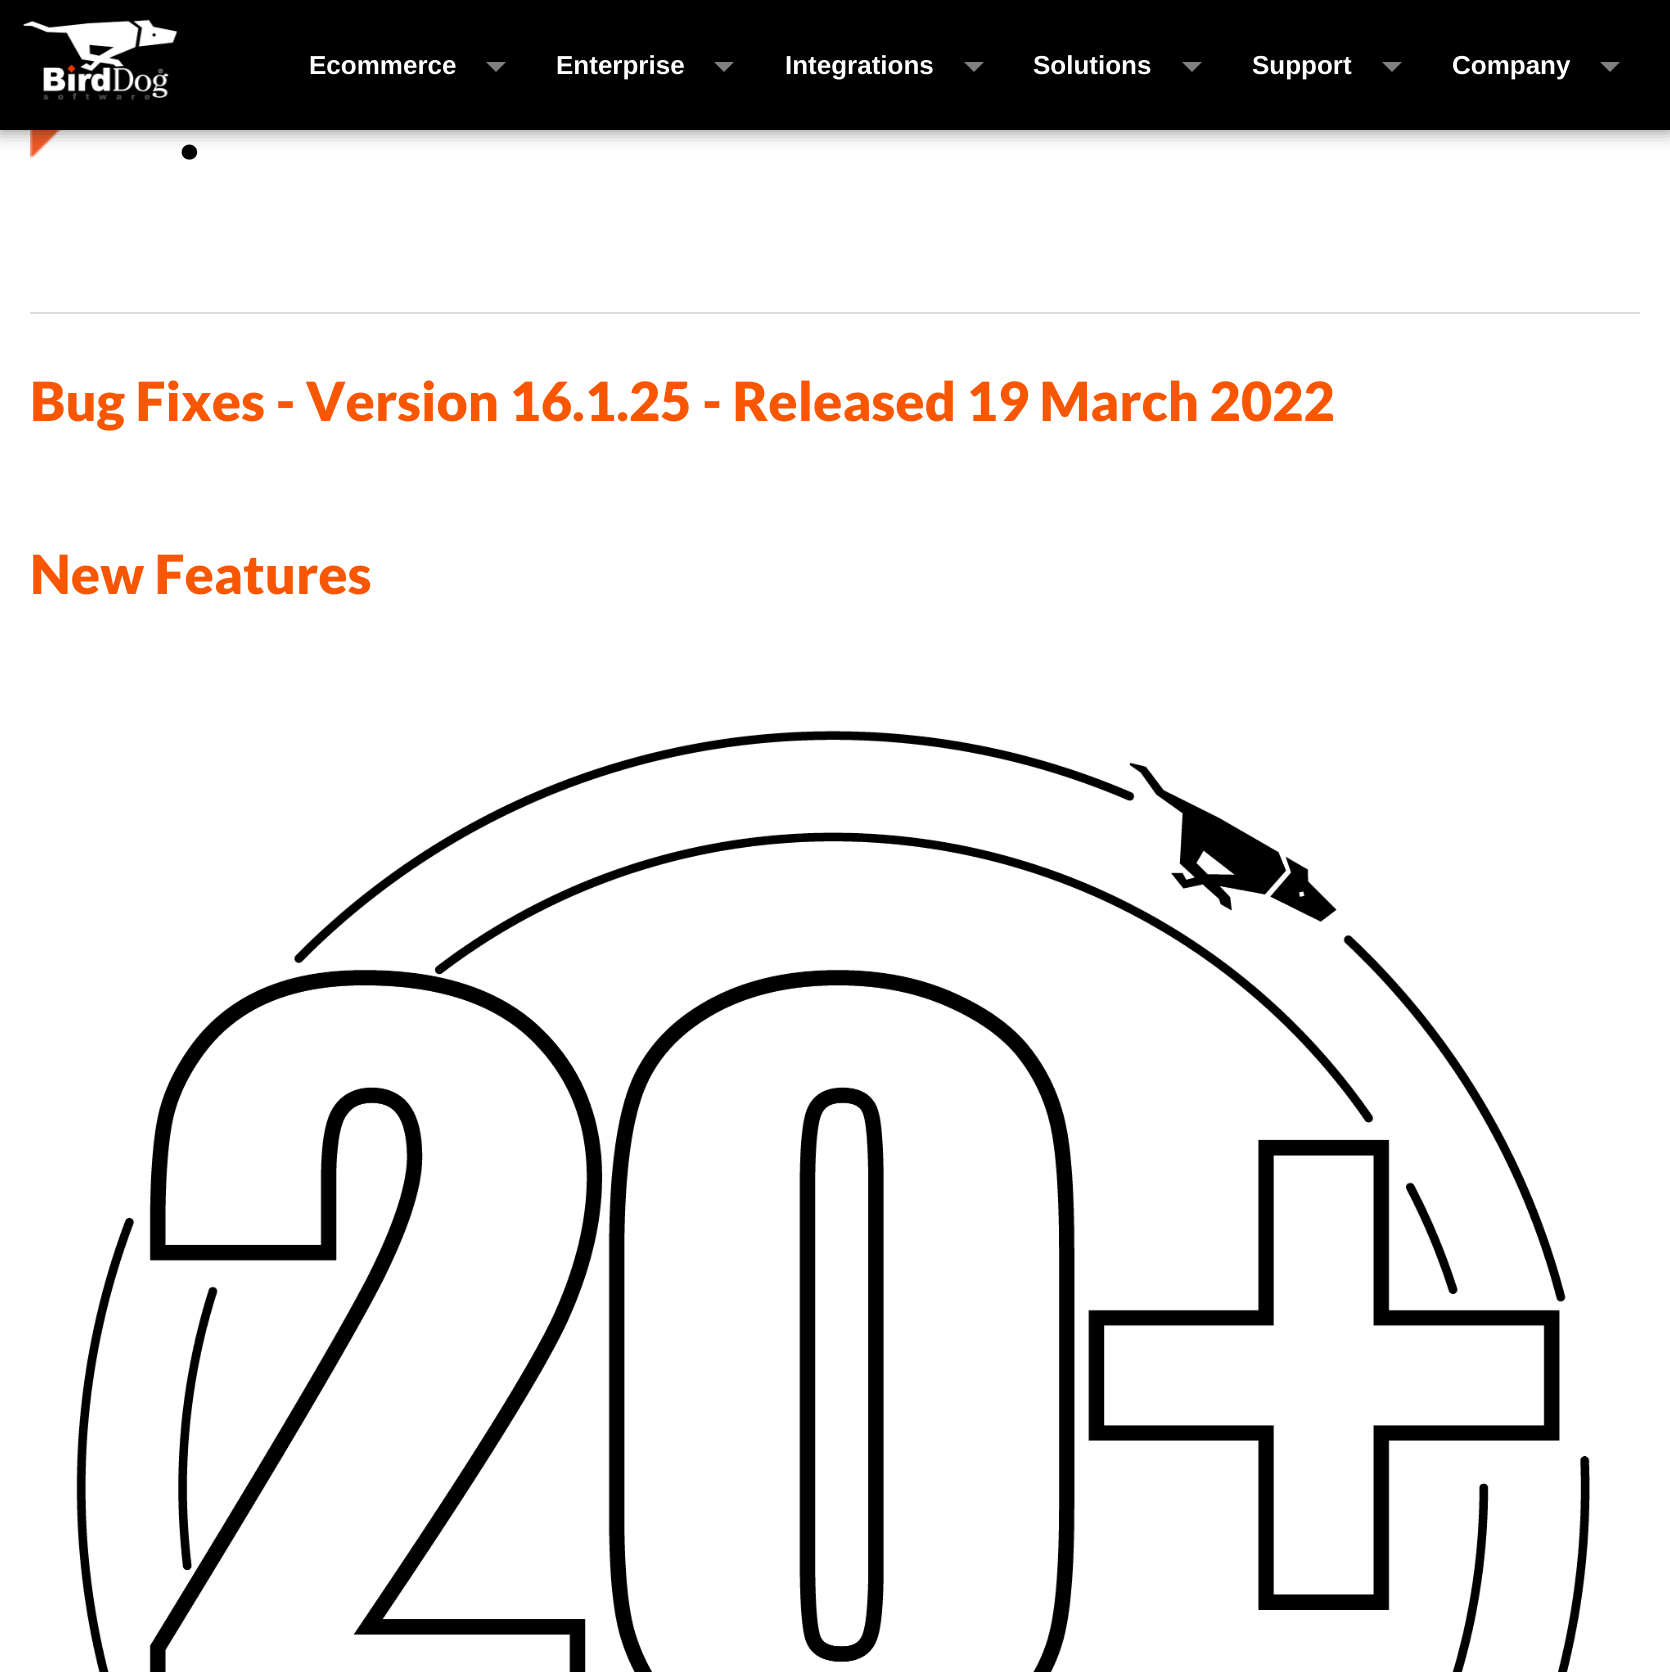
#include <cairo.h>
#include <math.h>
#include <stddef.h>

typedef struct { const char *family; double size; int italic, bold; unsigned color; } style_t;
static cairo_t *ctx;

static void ink(unsigned color) {
    cairo_set_source_rgb(ctx, (color >> 16) / 255.0, (color >> 8 & 255) / 255.0, (color & 255) / 255.0);
}

static void write(double x, double y, const char *s, const style_t *st) {
    cairo_select_font_face(ctx, st->family, st->italic ? CAIRO_FONT_SLANT_ITALIC : CAIRO_FONT_SLANT_NORMAL,
        st->bold ? CAIRO_FONT_WEIGHT_BOLD : CAIRO_FONT_WEIGHT_NORMAL);
    cairo_set_font_size(ctx, st->size);
    ink(st->color);
    cairo_move_to(ctx, x, y);
    cairo_show_text(ctx, s);
}

static void block(double x, double y, double w, double h, unsigned color) {
    ink(color);
    cairo_rectangle(ctx, x, y, w, h);
    cairo_fill(ctx);
}

static void round_path(double x, double y, double w, double h, double r) {
    cairo_new_sub_path(ctx);
    cairo_arc(ctx, x + w - r, y + h - r, r, 0, M_PI / 2);
    cairo_arc(ctx, x + r, y + h - r, r, M_PI / 2, M_PI);
    cairo_arc(ctx, x + r, y + r, r, M_PI, 1.5 * M_PI);
    cairo_arc(ctx, x + w - r, y + r, r, 1.5 * M_PI, 2 * M_PI);
    cairo_close_path(ctx);
}

static void blur_box(double x, double y, double w, double h, double r, double blur, double alpha) {
    cairo_push_group_with_content(ctx, CAIRO_CONTENT_ALPHA);
    cairo_set_operator(ctx, CAIRO_OPERATOR_SOURCE);
    for (int i = 15; i >= -15 && fmin(w, h) + blur * i / 3 > 0; i -= 2) {
        double e = blur * i / 6;
        cairo_set_source_rgba(ctx, 0, 0, 0, alpha * erfc((i - 1) / 8.5) / 2);
        round_path(x - e, y - e, w + 2 * e, h + 2 * e, fmax(0, fmin(r + e + blur * .6, fmin(w, h) / 2 + e)));
        cairo_fill(ctx);
    }
    cairo_pattern_t *soft = cairo_pop_group(ctx);
    cairo_mask(ctx, soft);
    cairo_pattern_destroy(soft);
}

static void paste(const char *path, double x, double y, double w, double h) {
    cairo_surface_t *image = cairo_image_surface_create_from_png(path);
    cairo_save(ctx);
    cairo_set_source_surface(ctx, image, x, y);
    cairo_rectangle(ctx, x, y, w, h);
    cairo_fill(ctx);
    cairo_restore(ctx);
    cairo_surface_destroy(image);
}

static const style_t s1 = {"Liberation Sans", 26, 0, 1, 0xffffff};
static const style_t s2 = {"Lato Black", 88, 0, 0, 0x000000};
static const style_t s3 = {"Lato Black", 54, 0, 0, 0xf95602};

int main(void) {
    cairo_surface_t *surface = cairo_image_surface_create(CAIRO_FORMAT_RGB24, 1670, 1672);
    ctx = cairo_create(surface);
    cairo_font_options_t *options = cairo_font_options_create();
    cairo_font_options_set_hint_metrics(options, CAIRO_HINT_METRICS_OFF);
    cairo_font_options_set_hint_style(options, CAIRO_HINT_STYLE_NONE);
    cairo_set_font_options(ctx, options);
    cairo_set_miter_limit(ctx, 4);
    ink(0xffffff);
    cairo_paint(ctx);
    paste("pic2.png", 30, 130, 33, 28);
    ink(0x000000);
    blur_box(0, 0, 1670, 130, 0, 10, 0.5);
    block(0, 0, 1670, 130, 0x000000);
    paste("pic1.png", 23, 19, 154, 81);
    write(309, 74, "Ecommerce", &s1);
    ink(0x808080);
    cairo_new_path(ctx);
    cairo_move_to(ctx, 486, 62);
    cairo_line_to(ctx, 506, 62);
    cairo_line_to(ctx, 496, 72);
    cairo_close_path(ctx);
    cairo_fill(ctx);
    write(556, 74, "Enterprise", &s1);
    ink(0x808080);
    cairo_new_path(ctx);
    cairo_move_to(ctx, 714, 62);
    cairo_line_to(ctx, 734, 62);
    cairo_line_to(ctx, 724, 72);
    cairo_close_path(ctx);
    cairo_fill(ctx);
    write(785, 74, "Integrations", &s1);
    ink(0x808080);
    cairo_new_path(ctx);
    cairo_move_to(ctx, 964, 62);
    cairo_line_to(ctx, 984, 62);
    cairo_line_to(ctx, 974, 72);
    cairo_close_path(ctx);
    cairo_fill(ctx);
    write(1033, 74, "Solutions", &s1);
    ink(0x808080);
    cairo_new_path(ctx);
    cairo_move_to(ctx, 1182, 62);
    cairo_line_to(ctx, 1202, 62);
    cairo_line_to(ctx, 1192, 72);
    cairo_close_path(ctx);
    cairo_fill(ctx);
    write(1252, 74, "Support", &s1);
    ink(0x808080);
    cairo_new_path(ctx);
    cairo_move_to(ctx, 1382, 62);
    cairo_line_to(ctx, 1402, 62);
    cairo_line_to(ctx, 1392, 72);
    cairo_close_path(ctx);
    cairo_fill(ctx);
    write(1452, 74, "Company", &s1);
    ink(0x808080);
    cairo_new_path(ctx);
    cairo_move_to(ctx, 1600, 62);
    cairo_line_to(ctx, 1620, 62);
    cairo_line_to(ctx, 1610, 72);
    cairo_close_path(ctx);
    cairo_fill(ctx);
    write(179, 159, ".", &s2);
    block(30, 312, 1610, 2, 0xdddddd);
    write(30, 421, "Bug Fixes - Version 16.1.25 - Released 19 March 2022", &s3);
    write(30, 594, "New Features", &s3);
    paste("pic3.png", 76, 730, 1514, 942);
    cairo_surface_write_to_png(surface, "screenshot.png");
    cairo_font_options_destroy(options);
    cairo_destroy(ctx);
    cairo_surface_destroy(surface);
    return 0;
}
